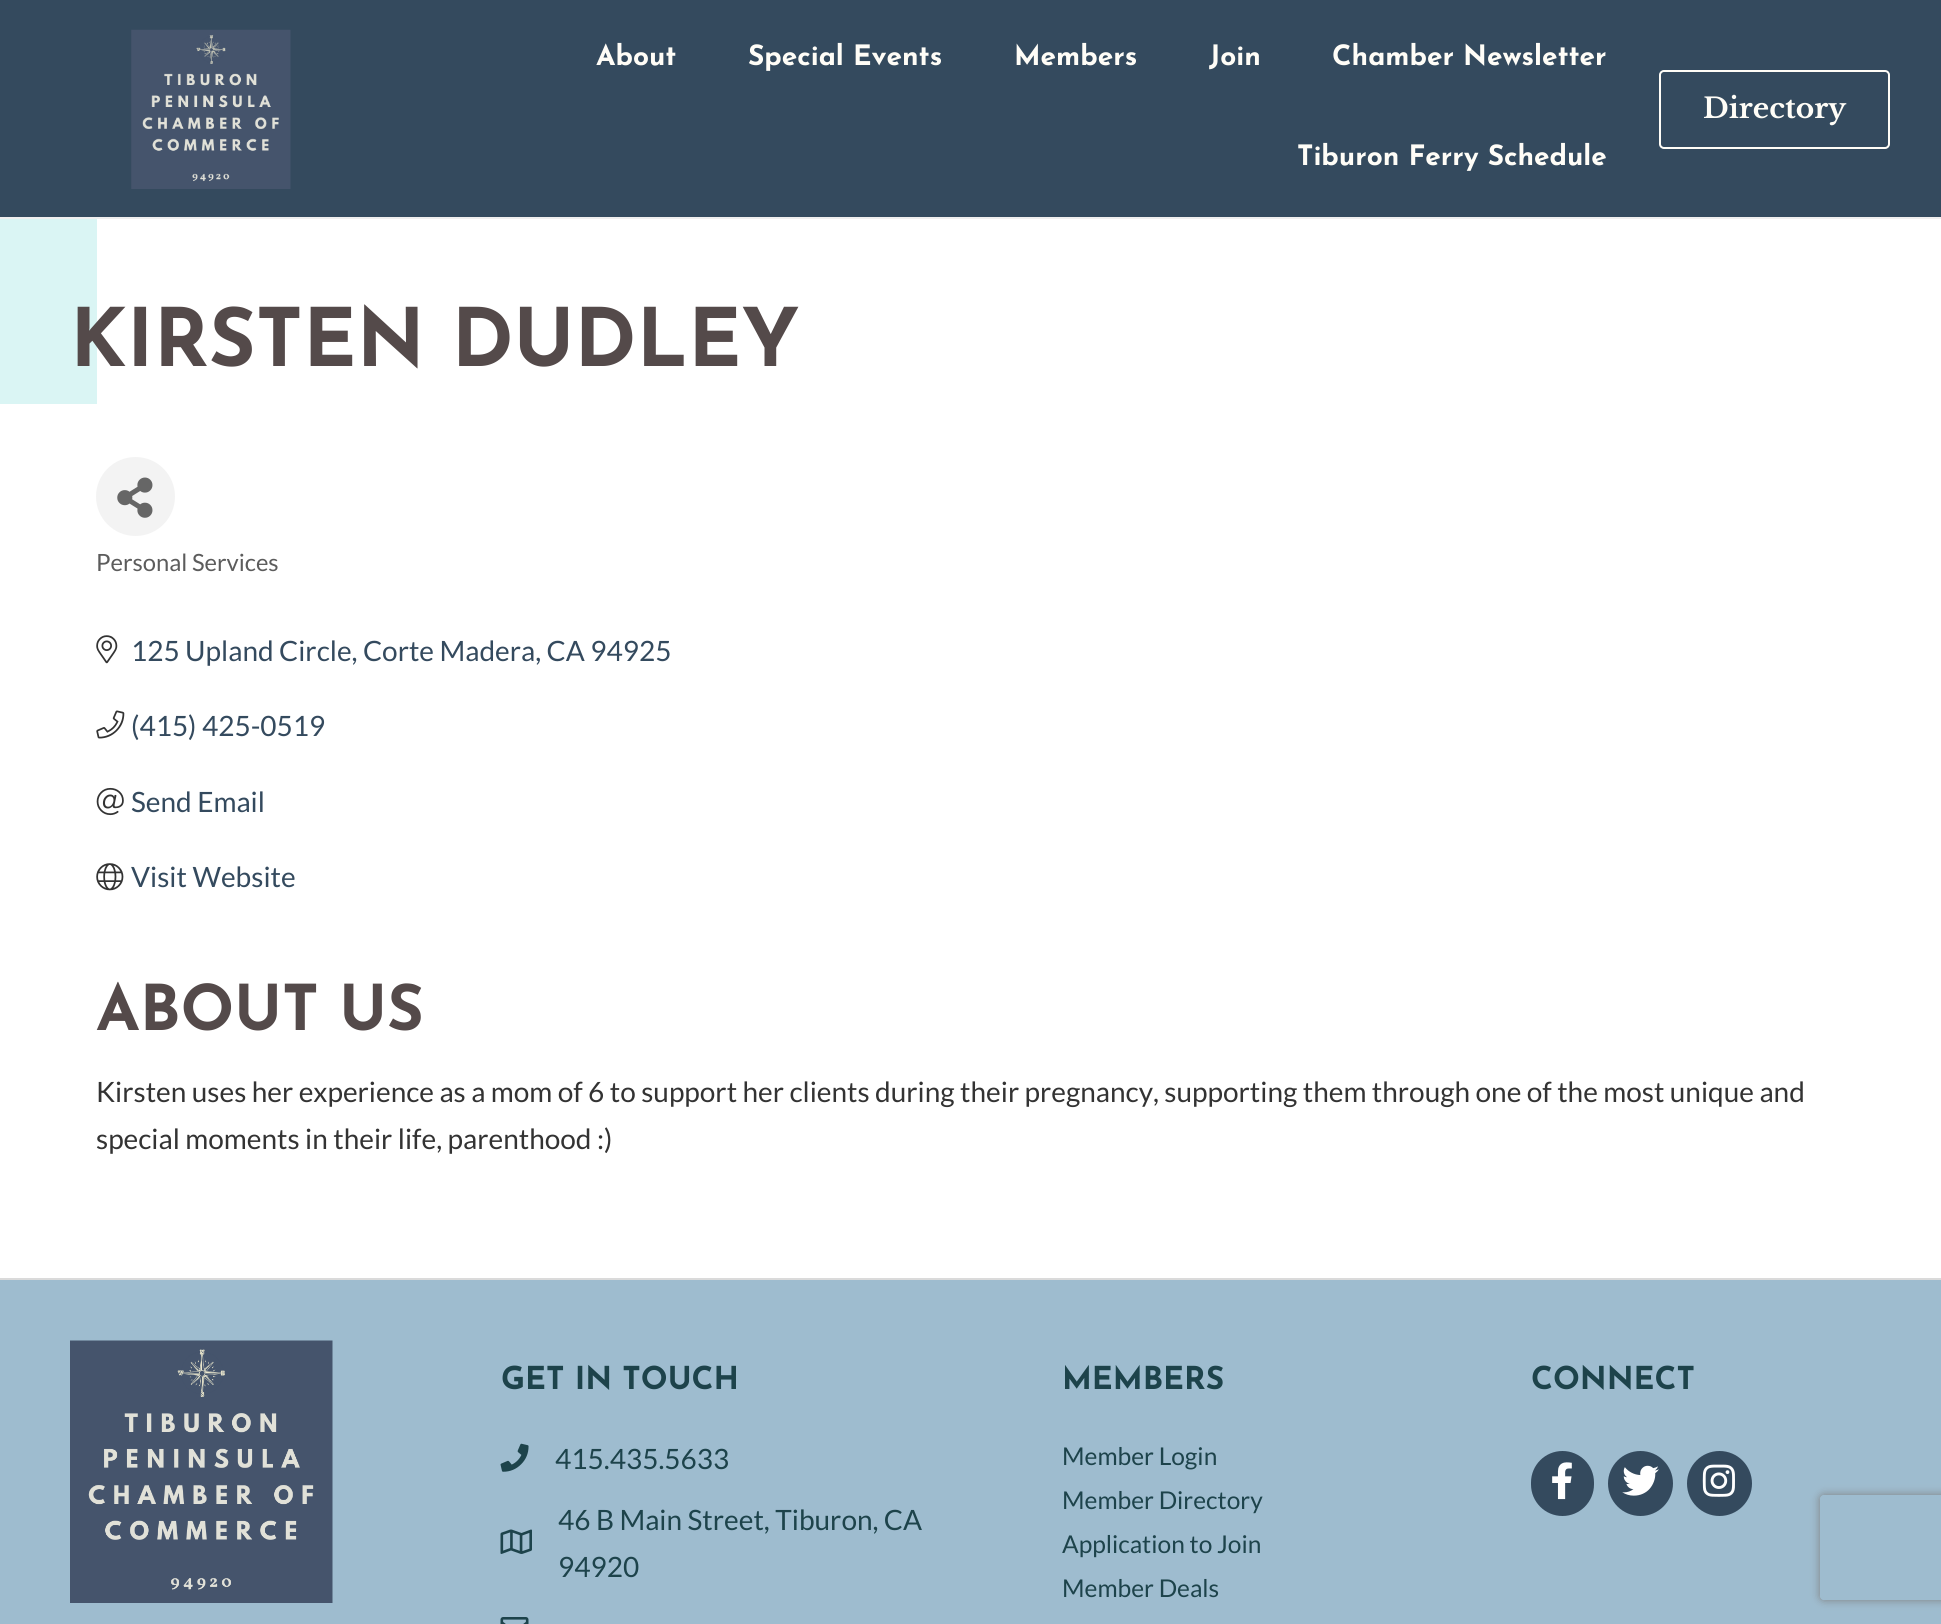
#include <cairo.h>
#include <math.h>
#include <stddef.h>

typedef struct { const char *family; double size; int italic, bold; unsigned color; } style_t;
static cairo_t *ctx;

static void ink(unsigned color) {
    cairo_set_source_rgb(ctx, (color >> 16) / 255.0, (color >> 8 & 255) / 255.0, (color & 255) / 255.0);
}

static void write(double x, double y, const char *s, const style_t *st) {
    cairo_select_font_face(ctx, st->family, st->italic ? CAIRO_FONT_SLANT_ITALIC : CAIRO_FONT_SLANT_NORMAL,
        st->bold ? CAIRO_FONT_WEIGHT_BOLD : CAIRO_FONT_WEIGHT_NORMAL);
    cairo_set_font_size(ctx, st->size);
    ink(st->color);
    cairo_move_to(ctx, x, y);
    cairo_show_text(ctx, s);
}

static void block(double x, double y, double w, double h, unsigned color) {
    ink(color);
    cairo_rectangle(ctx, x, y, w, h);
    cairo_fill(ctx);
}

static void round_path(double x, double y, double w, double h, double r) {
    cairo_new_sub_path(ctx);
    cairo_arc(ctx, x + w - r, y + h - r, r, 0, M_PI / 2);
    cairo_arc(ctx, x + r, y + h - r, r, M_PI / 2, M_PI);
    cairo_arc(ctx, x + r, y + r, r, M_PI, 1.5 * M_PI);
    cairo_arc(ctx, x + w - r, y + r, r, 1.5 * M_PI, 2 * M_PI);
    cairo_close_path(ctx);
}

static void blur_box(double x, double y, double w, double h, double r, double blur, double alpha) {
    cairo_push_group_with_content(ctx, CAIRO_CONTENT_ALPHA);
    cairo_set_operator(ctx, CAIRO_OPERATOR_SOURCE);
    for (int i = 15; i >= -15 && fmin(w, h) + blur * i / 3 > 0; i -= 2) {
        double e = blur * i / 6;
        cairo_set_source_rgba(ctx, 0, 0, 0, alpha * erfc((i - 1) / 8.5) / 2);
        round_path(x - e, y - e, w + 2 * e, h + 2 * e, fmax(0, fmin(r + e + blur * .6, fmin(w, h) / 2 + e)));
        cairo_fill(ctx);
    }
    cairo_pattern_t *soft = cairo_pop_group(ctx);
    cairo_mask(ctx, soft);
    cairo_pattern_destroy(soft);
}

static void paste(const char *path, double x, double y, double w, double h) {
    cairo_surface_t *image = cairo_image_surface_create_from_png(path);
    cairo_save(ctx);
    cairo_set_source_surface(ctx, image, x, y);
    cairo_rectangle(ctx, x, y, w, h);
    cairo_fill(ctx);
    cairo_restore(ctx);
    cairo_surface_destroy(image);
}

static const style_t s1 = {"Josefin Sans Thin", 28, 0, 0, 0xfffdf7};
static const style_t s2 = {"Libre Baskerville", 28, 0, 1, 0xfffdf7};
static const style_t s3 = {"Josefin Sans Thin", 80.5, 0, 0, 0x544a4a};
static const style_t s4 = {"Lato", 23.75, 0, 0, 0x5c5c5c};
static const style_t s5 = {"Lato", 28, 0, 0, 0x344a5e};
static const style_t s6 = {"Josefin Sans Thin", 63, 0, 0, 0x544a4a};
static const style_t s7 = {"Lato", 28, 0, 0, 0x333333};
static const style_t s8 = {"Josefin Sans Thin", 31.5, 0, 0, 0x1d434b};
static const style_t s9 = {"Lato", 28, 0, 0, 0x1d434b};
static const style_t s10 = {"Lato", 24.5, 0, 0, 0x1d434b};

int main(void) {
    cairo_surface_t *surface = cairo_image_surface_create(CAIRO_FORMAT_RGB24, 1941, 1624);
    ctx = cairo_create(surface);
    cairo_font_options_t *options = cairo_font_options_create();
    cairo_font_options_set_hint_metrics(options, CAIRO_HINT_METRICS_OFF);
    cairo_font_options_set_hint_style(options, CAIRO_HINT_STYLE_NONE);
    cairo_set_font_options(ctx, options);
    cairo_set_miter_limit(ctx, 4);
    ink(0xffffff);
    cairo_paint(ctx);
    block(0, 0, 1941, 217, 0x344a5e);
    block(0, 217, 1941, 2, 0xefefef);
    paste("pic1.png", 131, 29, 160, 160);
    write(596, 65, "About", &s1);
    write(748, 65, "Special Events", &s1);
    write(1014, 65, "Members", &s1);
    write(1209, 65, "Join", &s1);
    write(1332, 65, "Chamber Newsletter", &s1);
    write(1297, 165, "Tiburon Ferry Schedule", &s1);
    round_path(1660, 71, 229, 77, 4);
    cairo_stroke(ctx);
    write(1703, 118, "Directory", &s2);
    block(0, 219, 97, 185, 0xdaf5f4);
    write(70, 366, "KIRSTEN DUDLEY", &s3);
    ink(0xf3f3f3);
    cairo_new_path(ctx);
    cairo_arc(ctx, 135.5, 496.5, 39.5, 0, 2 * M_PI);
    cairo_fill(ctx);
    paste("pic2.png", 117, 477, 36, 41);
    write(96, 571, "Personal Services", &s4);
    paste("pic3.png", 96, 635, 22, 29);
    write(131, 661, "125 Upland Circle, Corte Madera, CA 94925", &s5);
    paste("pic4.png", 96, 710, 29, 29);
    write(131, 736, "(415) 425-0519", &s5);
    paste("pic5.png", 96, 787, 28, 29);
    write(131, 812, "Send Email", &s5);
    paste("pic6.png", 96, 863, 28, 28);
    write(131, 887, "Visit Website", &s5);
    write(96, 1030, "ABOUT US", &s6);
    write(96, 1102, "Kirsten uses her experience as a mom of 6 to support her clients during their pregnancy, supporting them through one of the most unique and", &s7);
    write(96, 1149, "special moments in their life, parenthood :)", &s7);
    block(0, 1280, 1941, 344, 0x9ebccf);
    block(0, 1278, 1941, 2, 0xdadada);
    paste("pic7.png", 70, 1340, 263, 263);
    write(501, 1389, "GET IN TOUCH", &s8);
    paste("pic8.png", 500, 1443, 29, 29);
    write(555, 1469, "415.435.5633", &s9);
    paste("pic9.png", 500, 1529, 32, 25);
    write(558, 1530, "46 B Main Street, Tiburon, CA", &s9);
    write(558, 1577, "94920", &s9);
    paste("pic10.png", 500, 1617, 29, 7);
    write(1062, 1389, "MEMBERS", &s8);
    write(1062, 1465, "Member Login", &s10);
    write(1062, 1509, "Member Directory", &s10);
    write(1062, 1553, "Application to Join", &s10);
    write(1062, 1597, "Member Deals", &s10);
    write(1531, 1389, "CONNECT", &s8);
    ink(0x344a5e);
    round_path(1531, 1451, 63, 65, 31.5);
    cairo_fill(ctx);
    paste("pic11.png", 1552, 1462, 20, 38);
    cairo_arc(ctx, 1640.5, 1483.5, 32.5, 0, 2 * M_PI);
    cairo_fill(ctx);
    paste("pic12.png", 1622, 1465, 37, 31);
    cairo_arc(ctx, 1719.5, 1483.5, 32.5, 0, 2 * M_PI);
    cairo_fill(ctx);
    paste("pic13.png", 1702, 1464, 33, 33);
    cairo_save(ctx);
    cairo_set_fill_rule(ctx, CAIRO_FILL_RULE_EVEN_ODD);
    cairo_new_path(ctx);
    cairo_move_to(ctx, 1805, 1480);
    cairo_line_to(ctx, 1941, 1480);
    cairo_line_to(ctx, 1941, 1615);
    cairo_line_to(ctx, 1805, 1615);
    cairo_close_path(ctx);
    cairo_move_to(ctx, 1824, 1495);
    cairo_line_to(ctx, 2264, 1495);
    cairo_curve_to(ctx, 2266, 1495, 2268, 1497, 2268, 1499);
    cairo_line_to(ctx, 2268, 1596);
    cairo_curve_to(ctx, 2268, 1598, 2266, 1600, 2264, 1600);
    cairo_line_to(ctx, 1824, 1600);
    cairo_curve_to(ctx, 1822, 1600, 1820, 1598, 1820, 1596);
    cairo_line_to(ctx, 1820, 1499);
    cairo_curve_to(ctx, 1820, 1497, 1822, 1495, 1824, 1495);
    cairo_close_path(ctx);
    cairo_clip(ctx);
    ink(0x808080);
    blur_box(1820, 1495, 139, 105, 4, 4.5, 1);
    cairo_restore(ctx);
    cairo_surface_write_to_png(surface, "screenshot.png");
    cairo_font_options_destroy(options);
    cairo_destroy(ctx);
    cairo_surface_destroy(surface);
    return 0;
}
